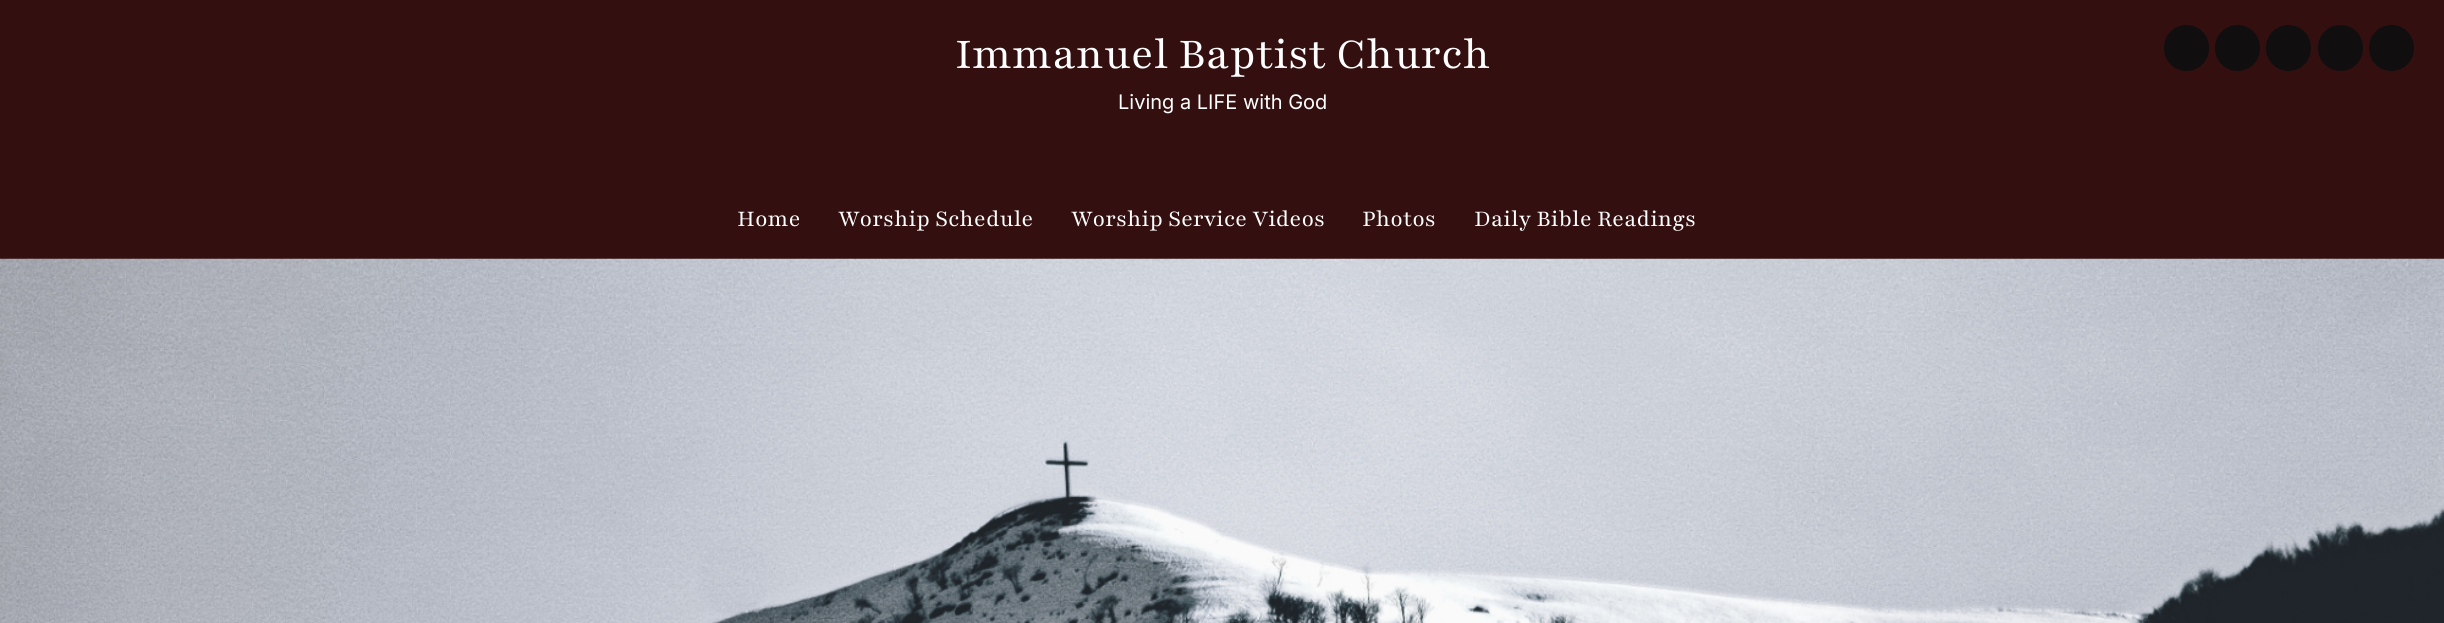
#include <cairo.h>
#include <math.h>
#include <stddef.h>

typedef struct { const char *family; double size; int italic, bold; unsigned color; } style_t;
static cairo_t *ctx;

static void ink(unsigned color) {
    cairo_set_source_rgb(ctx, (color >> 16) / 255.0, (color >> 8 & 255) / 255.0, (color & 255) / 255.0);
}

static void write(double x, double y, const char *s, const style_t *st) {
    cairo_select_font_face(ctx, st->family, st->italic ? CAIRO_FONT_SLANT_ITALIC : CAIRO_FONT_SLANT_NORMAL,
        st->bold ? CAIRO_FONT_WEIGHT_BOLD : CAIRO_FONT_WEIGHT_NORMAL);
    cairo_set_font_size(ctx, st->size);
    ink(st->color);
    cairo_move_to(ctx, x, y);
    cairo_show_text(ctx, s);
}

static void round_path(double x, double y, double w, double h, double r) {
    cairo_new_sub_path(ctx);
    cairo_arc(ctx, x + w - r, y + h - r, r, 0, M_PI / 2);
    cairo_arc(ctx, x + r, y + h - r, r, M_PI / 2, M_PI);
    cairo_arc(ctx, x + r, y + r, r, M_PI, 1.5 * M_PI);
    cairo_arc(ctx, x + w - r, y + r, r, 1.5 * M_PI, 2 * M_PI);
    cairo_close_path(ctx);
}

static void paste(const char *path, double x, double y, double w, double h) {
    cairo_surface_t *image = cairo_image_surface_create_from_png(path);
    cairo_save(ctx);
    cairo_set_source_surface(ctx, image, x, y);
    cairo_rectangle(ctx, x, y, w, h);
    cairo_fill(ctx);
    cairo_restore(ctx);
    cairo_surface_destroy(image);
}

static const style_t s1 = {"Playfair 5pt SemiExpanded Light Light", 47.5, 0, 0, 0xffffff};
static const style_t s2 = {"Inter", 20, 0, 0, 0xffffff};
static const style_t s3 = {"Playfair 5pt SemiExpanded Light Light", 25, 0, 0, 0xffffff};

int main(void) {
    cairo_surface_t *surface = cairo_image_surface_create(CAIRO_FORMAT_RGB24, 2444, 623);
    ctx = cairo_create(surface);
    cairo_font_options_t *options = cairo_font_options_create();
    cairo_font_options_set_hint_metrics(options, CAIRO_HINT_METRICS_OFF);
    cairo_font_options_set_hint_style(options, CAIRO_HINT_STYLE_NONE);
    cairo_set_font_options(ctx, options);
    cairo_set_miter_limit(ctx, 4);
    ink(0x330f0f);
    cairo_paint(ctx);
    write(955, 68, "Immanuel Baptist Church", &s1);
    ink(0x100e0f);
    round_path(2164, 25, 45, 46, 22.5);
    cairo_fill(ctx);
    round_path(2215, 25, 45, 46, 22.5);
    cairo_fill(ctx);
    round_path(2266, 25, 45, 46, 22.5);
    cairo_fill(ctx);
    round_path(2318, 25, 45, 46, 22.5);
    cairo_fill(ctx);
    round_path(2369, 25, 45, 46, 22.5);
    cairo_fill(ctx);
    write(1118, 109, "Living a LIFE with God", &s2);
    write(737, 226, "Home", &s3);
    write(838, 226, "Worship Schedule", &s3);
    write(1071, 226, "Worship Service Videos", &s3);
    write(1362, 226, "Photos", &s3);
    write(1474, 226, "Daily Bible Readings", &s3);
    paste("pic1.png", 0, 258, 2444, 365);
    cairo_surface_write_to_png(surface, "screenshot.png");
    cairo_font_options_destroy(options);
    cairo_destroy(ctx);
    cairo_surface_destroy(surface);
    return 0;
}
